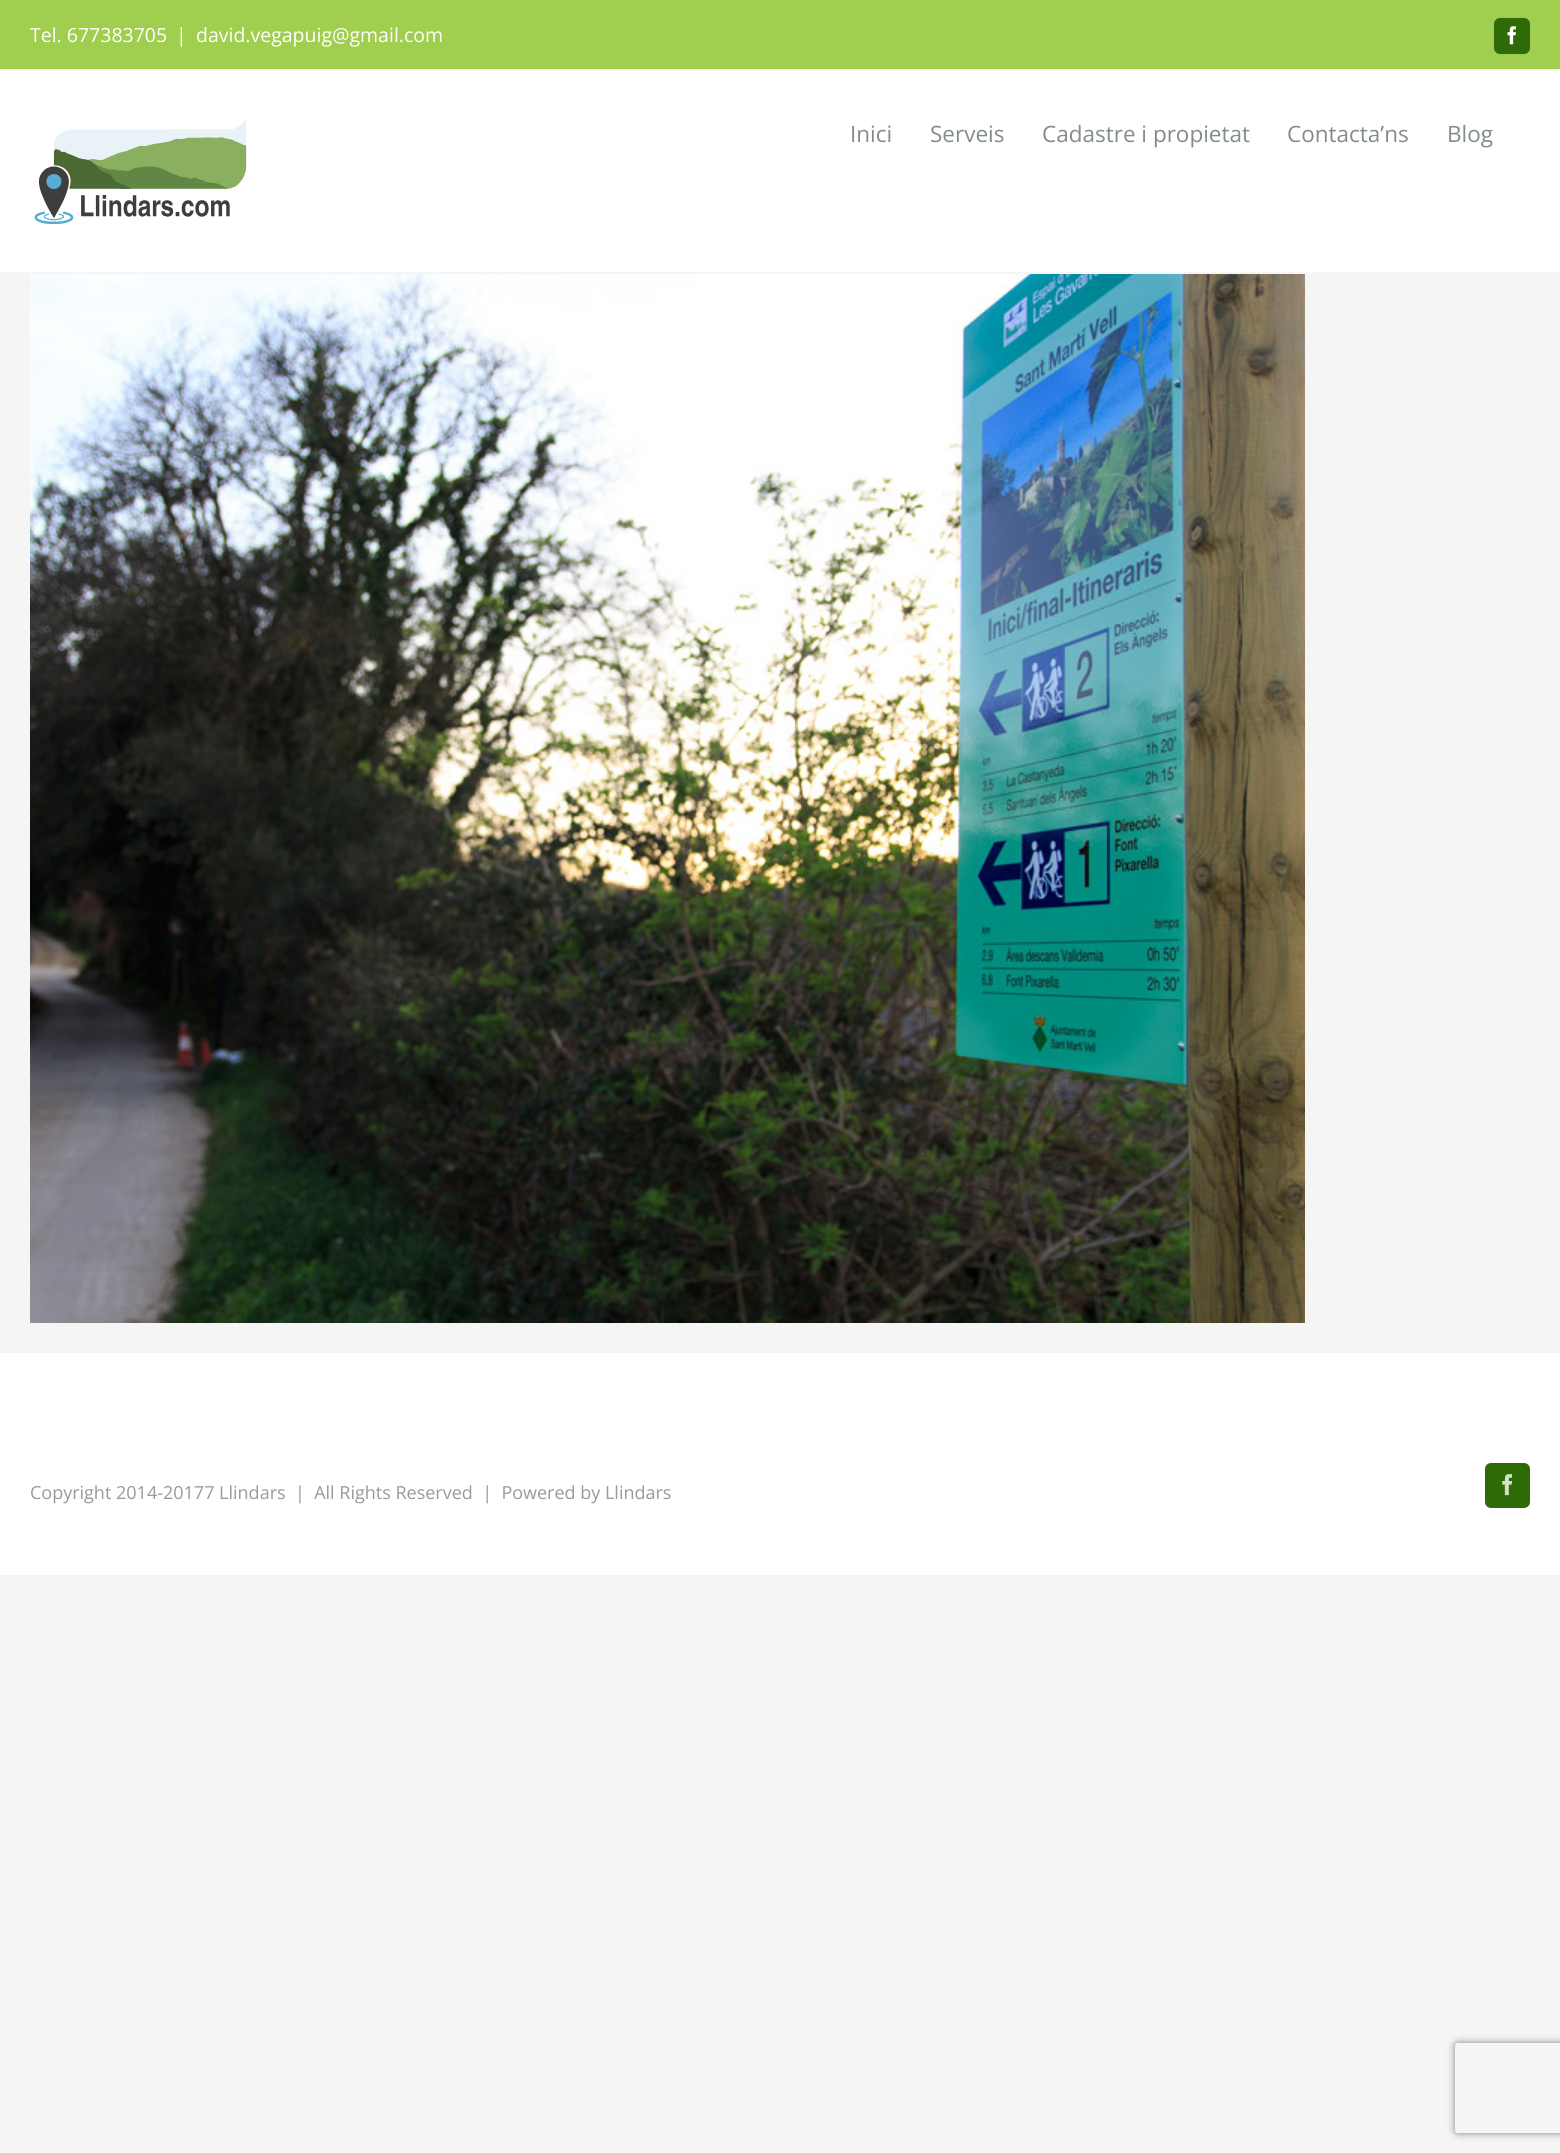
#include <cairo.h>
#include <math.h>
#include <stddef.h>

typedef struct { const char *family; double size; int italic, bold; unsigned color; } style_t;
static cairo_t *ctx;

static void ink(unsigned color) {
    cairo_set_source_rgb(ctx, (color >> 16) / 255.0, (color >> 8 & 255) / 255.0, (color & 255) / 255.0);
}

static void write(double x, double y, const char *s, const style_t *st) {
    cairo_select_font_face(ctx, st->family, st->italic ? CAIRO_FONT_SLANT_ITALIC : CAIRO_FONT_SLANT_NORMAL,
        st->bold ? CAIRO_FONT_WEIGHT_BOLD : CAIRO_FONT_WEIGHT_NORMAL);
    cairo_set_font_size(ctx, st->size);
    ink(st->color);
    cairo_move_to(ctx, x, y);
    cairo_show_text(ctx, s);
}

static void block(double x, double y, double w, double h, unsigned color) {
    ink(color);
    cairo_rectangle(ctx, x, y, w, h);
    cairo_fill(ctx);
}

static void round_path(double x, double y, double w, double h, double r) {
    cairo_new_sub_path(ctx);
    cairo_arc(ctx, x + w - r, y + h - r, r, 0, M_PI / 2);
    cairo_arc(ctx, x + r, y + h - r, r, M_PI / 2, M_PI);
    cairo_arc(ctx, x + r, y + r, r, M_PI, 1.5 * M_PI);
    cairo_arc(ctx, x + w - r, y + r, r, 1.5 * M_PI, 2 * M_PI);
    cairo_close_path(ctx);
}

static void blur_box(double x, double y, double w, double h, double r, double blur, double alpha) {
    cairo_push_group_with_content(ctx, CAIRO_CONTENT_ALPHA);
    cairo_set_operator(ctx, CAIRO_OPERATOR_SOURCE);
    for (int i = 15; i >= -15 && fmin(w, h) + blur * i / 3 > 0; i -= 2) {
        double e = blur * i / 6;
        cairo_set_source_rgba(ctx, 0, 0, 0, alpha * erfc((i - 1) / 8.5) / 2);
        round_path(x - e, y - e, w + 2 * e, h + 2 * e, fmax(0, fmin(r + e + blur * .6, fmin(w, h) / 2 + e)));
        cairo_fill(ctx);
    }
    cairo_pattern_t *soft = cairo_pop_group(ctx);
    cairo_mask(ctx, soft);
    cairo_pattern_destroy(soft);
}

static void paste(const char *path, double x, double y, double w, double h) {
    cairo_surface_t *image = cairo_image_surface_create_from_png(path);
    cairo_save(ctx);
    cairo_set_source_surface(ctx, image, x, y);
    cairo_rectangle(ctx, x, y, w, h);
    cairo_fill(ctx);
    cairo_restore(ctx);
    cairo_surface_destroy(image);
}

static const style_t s1 = {"Open Sans", 19.5, 0, 0, 0xffffff};
static const style_t s2 = {"Open Sans", 22.5, 0, 0, 0x848b8e};
static const style_t s3 = {"Open Sans", 18, 0, 0, 0x999999};

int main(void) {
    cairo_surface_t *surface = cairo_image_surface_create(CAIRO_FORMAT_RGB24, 1560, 2153);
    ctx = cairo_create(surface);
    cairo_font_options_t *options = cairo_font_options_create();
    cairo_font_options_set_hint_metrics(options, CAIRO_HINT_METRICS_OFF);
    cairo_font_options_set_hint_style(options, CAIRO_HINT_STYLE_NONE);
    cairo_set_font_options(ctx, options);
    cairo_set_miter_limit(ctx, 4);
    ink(0xf5f5f5);
    cairo_paint(ctx);
    block(0, 0, 1560, 69, 0xa0ce4e);
    write(30, 42, "Tel. 677383705", &s1);
    write(176, 42, "|", &s1);
    write(196, 42, "david.vegapuig@gmail.com", &s1);
    ink(0x2e6b06);
    round_path(1495, 19, 34, 34, 5);
    cairo_fill_preserve(ctx);
    cairo_stroke(ctx);
    paste("pic1.png", 1507, 26, 9, 19);
    block(0, 71, 1560, 201, 0xffffff);
    paste("pic2.png", 34, 118, 213, 106);
    write(850, 142, "Inici", &s2);
    write(930, 142, "Serveis", &s2);
    write(1042, 142, "Cadastre i propietat", &s2);
    write(1287, 142, "Contacta’ns", &s2);
    write(1447, 142, "Blog", &s2);
    paste("pic3.png", 30, 274, 1275, 1049);
    block(0, 1353, 1560, 222, 0xffffff);
    write(30, 1499, "Copyright 2014-20177 Llindars  |  All Rights Reserved  |  Powered by Llindars", &s3);
    ink(0x2e6b06);
    round_path(1486, 1464, 43, 43, 5);
    cairo_fill_preserve(ctx);
    cairo_stroke(ctx);
    paste("pic4.png", 1502, 1474, 11, 22);
    cairo_save(ctx);
    cairo_set_fill_rule(ctx, CAIRO_FILL_RULE_EVEN_ODD);
    cairo_new_path(ctx);
    cairo_move_to(ctx, 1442, 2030);
    cairo_line_to(ctx, 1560, 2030);
    cairo_line_to(ctx, 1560, 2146);
    cairo_line_to(ctx, 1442, 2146);
    cairo_close_path(ctx);
    cairo_move_to(ctx, 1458, 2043);
    cairo_line_to(ctx, 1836, 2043);
    cairo_curve_to(ctx, 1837.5, 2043, 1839, 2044.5, 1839, 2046);
    cairo_line_to(ctx, 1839, 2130);
    cairo_curve_to(ctx, 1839, 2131.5, 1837.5, 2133, 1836, 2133);
    cairo_line_to(ctx, 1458, 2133);
    cairo_curve_to(ctx, 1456.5, 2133, 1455, 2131.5, 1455, 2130);
    cairo_line_to(ctx, 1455, 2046);
    cairo_curve_to(ctx, 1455, 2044.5, 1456.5, 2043, 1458, 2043);
    cairo_close_path(ctx);
    cairo_clip(ctx);
    ink(0x808080);
    blur_box(1455, 2043, 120, 90, 3, 4, 1);
    cairo_restore(ctx);
    cairo_surface_write_to_png(surface, "screenshot.png");
    cairo_font_options_destroy(options);
    cairo_destroy(ctx);
    cairo_surface_destroy(surface);
    return 0;
}
